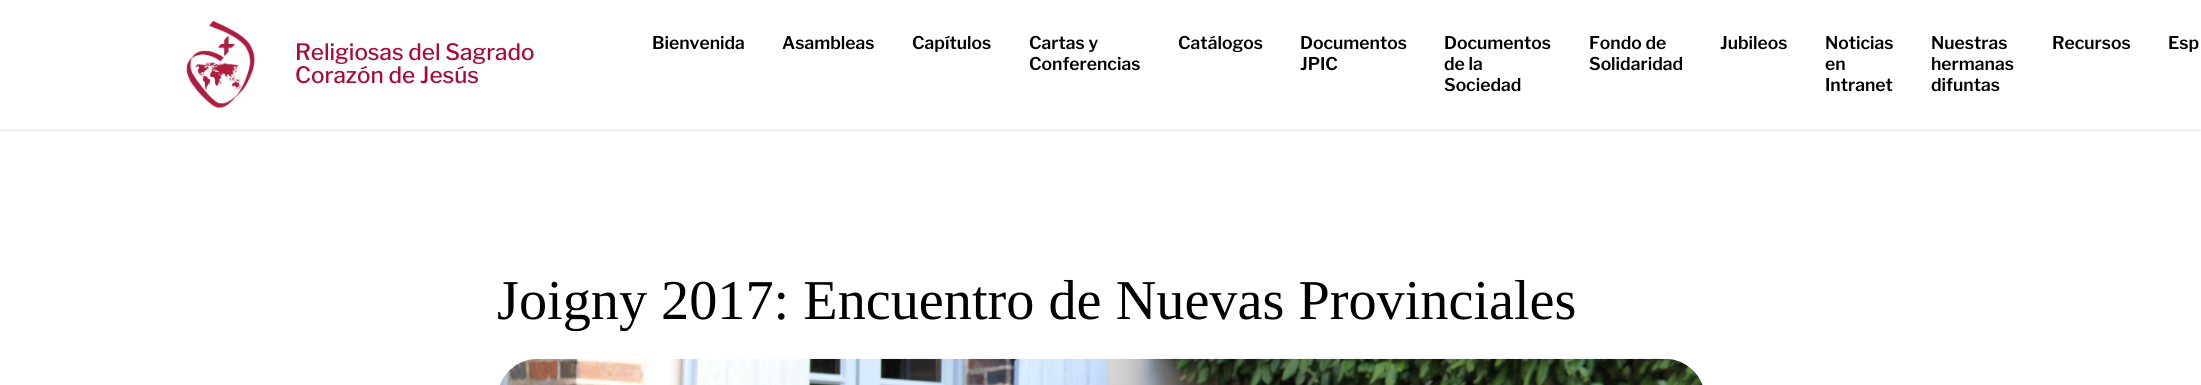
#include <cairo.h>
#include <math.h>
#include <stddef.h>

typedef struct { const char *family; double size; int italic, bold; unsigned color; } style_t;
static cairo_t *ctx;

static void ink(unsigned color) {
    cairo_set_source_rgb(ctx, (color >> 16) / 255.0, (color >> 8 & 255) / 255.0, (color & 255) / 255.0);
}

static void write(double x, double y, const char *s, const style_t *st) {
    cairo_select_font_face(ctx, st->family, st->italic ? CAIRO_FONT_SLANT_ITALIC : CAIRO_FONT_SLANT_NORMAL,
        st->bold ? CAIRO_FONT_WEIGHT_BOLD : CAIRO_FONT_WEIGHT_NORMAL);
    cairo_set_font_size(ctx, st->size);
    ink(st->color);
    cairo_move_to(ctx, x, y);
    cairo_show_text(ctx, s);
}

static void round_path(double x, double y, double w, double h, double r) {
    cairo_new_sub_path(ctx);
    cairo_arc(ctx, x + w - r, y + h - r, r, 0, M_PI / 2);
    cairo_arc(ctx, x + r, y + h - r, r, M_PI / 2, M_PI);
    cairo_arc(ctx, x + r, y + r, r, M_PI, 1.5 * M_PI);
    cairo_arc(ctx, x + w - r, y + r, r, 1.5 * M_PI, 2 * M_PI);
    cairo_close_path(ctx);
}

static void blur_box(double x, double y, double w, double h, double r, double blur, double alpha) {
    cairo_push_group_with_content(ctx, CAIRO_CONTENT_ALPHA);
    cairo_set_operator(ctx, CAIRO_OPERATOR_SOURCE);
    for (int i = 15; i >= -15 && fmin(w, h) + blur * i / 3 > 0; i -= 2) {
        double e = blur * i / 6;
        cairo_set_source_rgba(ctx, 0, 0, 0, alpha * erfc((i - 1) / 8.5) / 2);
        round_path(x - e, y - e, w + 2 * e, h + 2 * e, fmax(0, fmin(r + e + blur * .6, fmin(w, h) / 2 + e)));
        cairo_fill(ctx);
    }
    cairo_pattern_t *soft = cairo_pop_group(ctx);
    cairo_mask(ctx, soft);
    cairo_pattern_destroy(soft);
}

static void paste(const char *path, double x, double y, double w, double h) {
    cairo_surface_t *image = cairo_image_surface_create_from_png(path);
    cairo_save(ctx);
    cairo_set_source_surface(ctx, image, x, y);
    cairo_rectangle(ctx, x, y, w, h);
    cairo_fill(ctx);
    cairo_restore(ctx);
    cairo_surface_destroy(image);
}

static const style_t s1 = {"Libre Franklin Medium", 22.5, 0, 0, 0xa9093b};
static const style_t s2 = {"Libre Franklin SemiBold", 17.5, 0, 0, 0x000000};
static const style_t s3 = {"Liberation Serif", 56.25, 0, 0, 0x000000};

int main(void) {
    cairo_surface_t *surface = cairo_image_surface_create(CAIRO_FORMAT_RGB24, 2201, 385);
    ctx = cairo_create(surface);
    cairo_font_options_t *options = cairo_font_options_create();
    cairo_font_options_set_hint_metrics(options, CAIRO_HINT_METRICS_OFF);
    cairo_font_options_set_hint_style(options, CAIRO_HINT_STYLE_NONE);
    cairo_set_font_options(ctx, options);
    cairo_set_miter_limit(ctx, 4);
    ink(0xffffff);
    cairo_paint(ctx);
    cairo_save(ctx);
    cairo_rectangle(ctx, 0, 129, 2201, 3);
    cairo_clip(ctx);
    ink(0x000000);
    blur_box(0, 3, 2201, 128, 0, 2.5, 0.07);
    cairo_restore(ctx);
    paste("pic1.png", 186, 21, 69, 88);
    write(295, 60, "Religiosas del Sagrado", &s1);
    write(295, 83, "Corazón de Jesús", &s1);
    write(652, 49, "Bienvenida", &s2);
    write(782, 49, "Asambleas", &s2);
    write(912, 49, "Capítulos", &s2);
    write(1029, 49, "Cartas y", &s2);
    write(1029, 70, "Conferencias", &s2);
    write(1178, 49, "Catálogos", &s2);
    write(1300, 49, "Documentos", &s2);
    write(1300, 70, "JPIC", &s2);
    write(1444, 49, "Documentos", &s2);
    write(1444, 70, "de la", &s2);
    write(1444, 91, "Sociedad", &s2);
    write(1589, 49, "Fondo de", &s2);
    write(1589, 70, "Solidaridad", &s2);
    write(1720, 49, "Jubileos", &s2);
    write(1825, 49, "Noticias", &s2);
    write(1825, 70, "en", &s2);
    write(1825, 91, "Intranet", &s2);
    write(1931, 49, "Nuestras", &s2);
    write(1931, 70, "hermanas", &s2);
    write(1931, 91, "difuntas", &s2);
    write(2052, 49, "Recursos", &s2);
    write(2168, 49, "Esp", &s2);
    write(497, 319, "Joigny 2017: Encuentro de Nuevas Provinciales", &s3);
    paste("pic2.png", 500, 358, 1203, 27);
    cairo_surface_write_to_png(surface, "screenshot.png");
    cairo_font_options_destroy(options);
    cairo_destroy(ctx);
    cairo_surface_destroy(surface);
    return 0;
}
